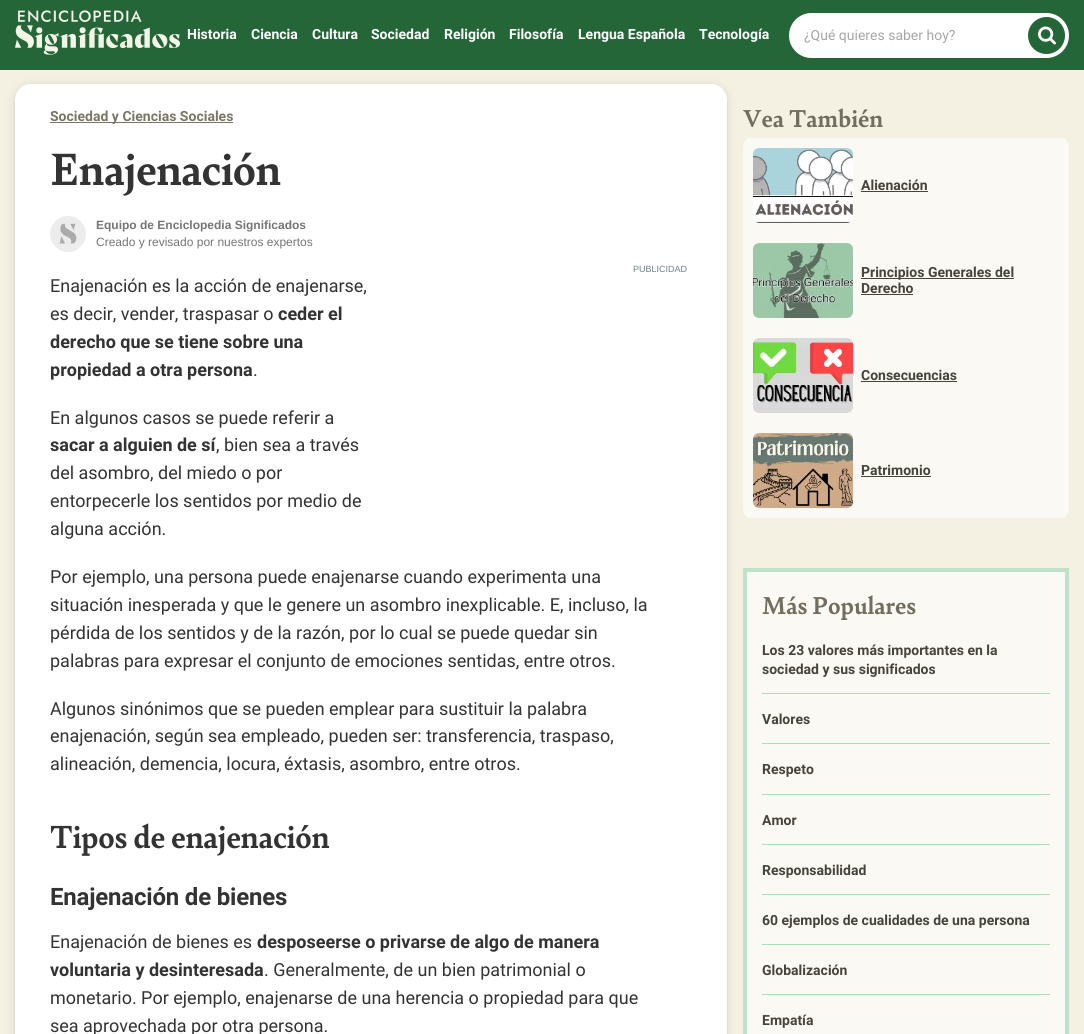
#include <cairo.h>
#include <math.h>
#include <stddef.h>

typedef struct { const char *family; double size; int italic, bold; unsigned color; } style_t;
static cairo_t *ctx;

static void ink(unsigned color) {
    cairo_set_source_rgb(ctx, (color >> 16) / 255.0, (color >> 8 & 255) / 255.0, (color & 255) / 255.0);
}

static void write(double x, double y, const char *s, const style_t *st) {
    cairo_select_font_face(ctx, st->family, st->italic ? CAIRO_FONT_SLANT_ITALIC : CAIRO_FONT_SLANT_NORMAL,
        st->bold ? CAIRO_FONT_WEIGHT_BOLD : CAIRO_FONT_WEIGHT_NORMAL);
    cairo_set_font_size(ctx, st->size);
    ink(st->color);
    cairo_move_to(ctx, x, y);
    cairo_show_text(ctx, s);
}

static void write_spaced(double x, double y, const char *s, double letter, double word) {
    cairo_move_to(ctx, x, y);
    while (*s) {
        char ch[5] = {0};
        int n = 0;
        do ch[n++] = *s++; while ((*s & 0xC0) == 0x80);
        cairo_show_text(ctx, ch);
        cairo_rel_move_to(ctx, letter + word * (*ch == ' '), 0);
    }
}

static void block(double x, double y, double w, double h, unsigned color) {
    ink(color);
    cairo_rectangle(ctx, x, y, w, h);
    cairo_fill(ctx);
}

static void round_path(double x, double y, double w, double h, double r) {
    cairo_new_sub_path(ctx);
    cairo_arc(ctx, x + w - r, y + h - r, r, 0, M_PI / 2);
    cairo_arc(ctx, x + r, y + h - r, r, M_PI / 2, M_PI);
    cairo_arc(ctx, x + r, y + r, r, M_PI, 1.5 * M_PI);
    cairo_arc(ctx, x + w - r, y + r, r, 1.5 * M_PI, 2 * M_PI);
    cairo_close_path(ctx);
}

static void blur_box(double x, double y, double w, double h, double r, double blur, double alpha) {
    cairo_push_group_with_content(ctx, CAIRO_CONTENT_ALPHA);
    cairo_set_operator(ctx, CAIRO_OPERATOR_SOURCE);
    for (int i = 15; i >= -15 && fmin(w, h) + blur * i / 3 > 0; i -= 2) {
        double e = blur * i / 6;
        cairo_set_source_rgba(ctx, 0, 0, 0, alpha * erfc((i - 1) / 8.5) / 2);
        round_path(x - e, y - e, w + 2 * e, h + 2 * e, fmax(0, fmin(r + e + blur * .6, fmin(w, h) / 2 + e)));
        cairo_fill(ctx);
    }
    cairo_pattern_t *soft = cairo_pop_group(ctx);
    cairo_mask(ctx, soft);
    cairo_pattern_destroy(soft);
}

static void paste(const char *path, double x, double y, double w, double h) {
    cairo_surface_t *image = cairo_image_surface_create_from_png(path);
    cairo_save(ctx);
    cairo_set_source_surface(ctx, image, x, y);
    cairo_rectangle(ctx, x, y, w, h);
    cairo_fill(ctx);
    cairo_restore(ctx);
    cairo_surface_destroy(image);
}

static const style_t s1 = {"Roboto", 14, 0, 1, 0xffffff};
static const style_t s2 = {"Roboto", 14, 0, 0, 0xa6a6a6};
static const style_t s3 = {"Roboto", 14, 0, 1, 0x7a7666};
static const style_t s4 = {"Liberation Sans", 12, 0, 1, 0x757575};
static const style_t s5 = {"Liberation Sans", 12, 0, 0, 0x757575};
static const style_t s6 = {"Liberation Sans", 9, 0, 0, 0x6f7e8a};
static const style_t s7 = {"Roboto", 18, 0, 0, 0x333333};
static const style_t s8 = {"Roboto", 18, 0, 1, 0x333333};
static const style_t s9 = {"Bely", 26, 0, 1, 0x726d5f};
static const style_t s10 = {"Roboto", 14, 0, 1, 0x46433a};

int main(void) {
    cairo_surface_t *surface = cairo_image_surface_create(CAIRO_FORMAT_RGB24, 1084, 1034);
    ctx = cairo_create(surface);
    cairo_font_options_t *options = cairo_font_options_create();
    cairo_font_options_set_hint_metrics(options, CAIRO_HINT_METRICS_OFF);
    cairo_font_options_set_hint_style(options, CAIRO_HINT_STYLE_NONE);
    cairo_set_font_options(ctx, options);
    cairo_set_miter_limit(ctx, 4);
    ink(0xf4f1e3);
    cairo_paint(ctx);
    ink(0x000000);
    blur_box(15, 85, 712, 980, 16, 5, 0.1);
    block(0, 0, 1084, 70, 0x246637);
    paste("pic1.png", 15, 10, 165, 45);
    write(187, 39, "Historia", &s1);
    write(251, 39, "Ciencia", &s1);
    write(312, 39, "Cultura", &s1);
    write(371, 39, "Sociedad", &s1);
    write(444, 39, "Religión", &s1);
    write(509, 39, "Filosofía", &s1);
    write(578, 39, "Lengua Española", &s1);
    write(699, 39, "Tecnología", &s1);
    round_path(789, 13, 280, 45, 22.5);
    cairo_fill(ctx);
    write(804, 40, "¿Qué quieres saber hoy?", &s2);
    ink(0x246637);
    cairo_new_path(ctx);
    cairo_arc(ctx, 1046.5, 35.5, 18.5, 0, 2 * M_PI);
    cairo_fill(ctx);
    paste("pic2.png", 1038, 26, 18, 19);
    ink(0x000000);
    blur_box(15, 85, 712, 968, 16, 1, 0.1);
    ink(0xffffff);
    round_path(15, 84, 712, 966, 16);
    cairo_fill(ctx);
    block(50, 122, 183, 1, 0x7a7666);
    write(50, 121, "Sociedad y Ciencias Sociales", &s3);
    cairo_select_font_face(ctx, "Bely", CAIRO_FONT_SLANT_NORMAL, CAIRO_FONT_WEIGHT_BOLD);
    cairo_set_font_size(ctx, 48);
    ink(0x333333);
    write_spaced(50, 185, "Enajenación", -0.5, 0);
    paste("pic3.png", 50, 216, 36, 36);
    write(96, 229, "Equipo de Enciclopedia Significados", &s4);
    write(96, 246, "Creado y revisado por nuestros expertos", &s5);
    write(633, 272, "PUBLICIDAD", &s6);
    write(50, 292, "Enajenación es la acción de enajenarse,", &s7);
    write(50, 320, "es decir, vender, traspasar o", &s7);
    write(278, 320, "ceder el", &s8);
    write(50, 348, "derecho que se tiene sobre una", &s8);
    write(50, 376, "propiedad a otra persona", &s8);
    write(253, 376, ".", &s7);
    write(50, 424, "En algunos casos se puede referir a", &s7);
    write(50, 451, "sacar a alguien de sí", &s8);
    write(216, 451, ", bien sea a través", &s7);
    write(50, 479, "del asombro, del miedo o por", &s7);
    write(50, 507, "entorpecerle los sentidos por medio de", &s7);
    write(50, 535, "alguna acción.", &s7);
    write(50, 583, "Por ejemplo, una persona puede enajenarse cuando experimenta una", &s7);
    write(50, 611, "situación inesperada y que le genere un asombro inexplicable. E, incluso, la", &s7);
    write(50, 639, "pérdida de los sentidos y de la razón, por lo cual se puede quedar sin", &s7);
    write(50, 667, "palabras para expresar el conjunto de emociones sentidas, entre otros.", &s7);
    write(50, 715, "Algunos sinónimos que se pueden emplear para sustituir la palabra", &s7);
    write(50, 742, "enajenación, según sea empleado, pueden ser: transferencia, traspaso,", &s7);
    write(50, 770, "alineación, demencia, locura, éxtasis, asombro, entre otros.", &s7);
    cairo_select_font_face(ctx, "Bely", CAIRO_FONT_SLANT_NORMAL, CAIRO_FONT_WEIGHT_BOLD);
    cairo_set_font_size(ctx, 34);
    write_spaced(50, 848, "Tipos de enajenación", -0.25, 0);
    cairo_select_font_face(ctx, "Roboto", CAIRO_FONT_SLANT_NORMAL, CAIRO_FONT_WEIGHT_BOLD);
    cairo_set_font_size(ctx, 24);
    write_spaced(50, 905, "Enajenación de bienes", -0.2, 0);
    write(50, 948, "Enajenación de bienes es", &s7);
    write(257, 948, "desposeerse o privarse de algo de manera", &s8);
    write(50, 976, "voluntaria y desinteresada", &s8);
    write(264, 976, ". Generalmente, de un bien patrimonial o", &s7);
    write(50, 1004, "monetario. Por ejemplo, enajenarse de una herencia o propiedad para que", &s7);
    write(50, 1032, "sea aprovechada por otra persona.", &s7);
    write(743, 127, "Vea También", &s9);
    ink(0xfbf9f4);
    round_path(743, 138, 326, 380, 8);
    cairo_fill(ctx);
    paste("pic4.png", 753, 148, 100, 75);
    write(861, 190, "Alienación", &s10);
    block(861, 191, 67, 1, 0x46433a);
    paste("pic5.png", 753, 243, 100, 75);
    block(861, 278, 153, 1, 0x46433a);
    write(861, 277, "Principios Generales del", &s10);
    write(861, 293, "Derecho", &s10);
    block(861, 294, 52, 1, 0x46433a);
    paste("pic6.png", 753, 338, 100, 75);
    write(861, 380, "Consecuencias", &s10);
    block(861, 381, 96, 1, 0x46433a);
    paste("pic7.png", 753, 433, 100, 75);
    write(861, 475, "Patrimonio", &s10);
    block(861, 476, 70, 1, 0x46433a);
    ink(0xfbf9f4);
    cairo_rectangle(ctx, 745, 570, 322, 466);
    cairo_fill_preserve(ctx);
    ink(0xc1e0c9);
    cairo_set_line_width(ctx, 4);
    cairo_stroke(ctx);
    write(762, 614, "Más Populares", &s9);
    block(762, 693, 288, 1, 0xa8e0b8);
    write(762, 655, "Los 23 valores más importantes en la", &s10);
    write(762, 674, "sociedad y sus significados", &s10);
    block(762, 743, 288, 1, 0xa8e0b8);
    write(762, 724, "Valores", &s10);
    block(762, 794, 288, 1, 0xa8e0b8);
    write(762, 774, "Respeto", &s10);
    block(762, 844, 288, 1, 0xa8e0b8);
    write(762, 825, "Amor", &s10);
    block(762, 894, 288, 1, 0xa8e0b8);
    write(762, 875, "Responsabilidad", &s10);
    block(762, 944, 288, 1, 0xa8e0b8);
    write(762, 925, "60 ejemplos de cualidades de una persona", &s10);
    block(762, 994, 288, 1, 0xa8e0b8);
    write(762, 975, "Globalización", &s10);
    write(762, 1025, "Empatía", &s10);
    cairo_surface_write_to_png(surface, "screenshot.png");
    cairo_font_options_destroy(options);
    cairo_destroy(ctx);
    cairo_surface_destroy(surface);
    return 0;
}
